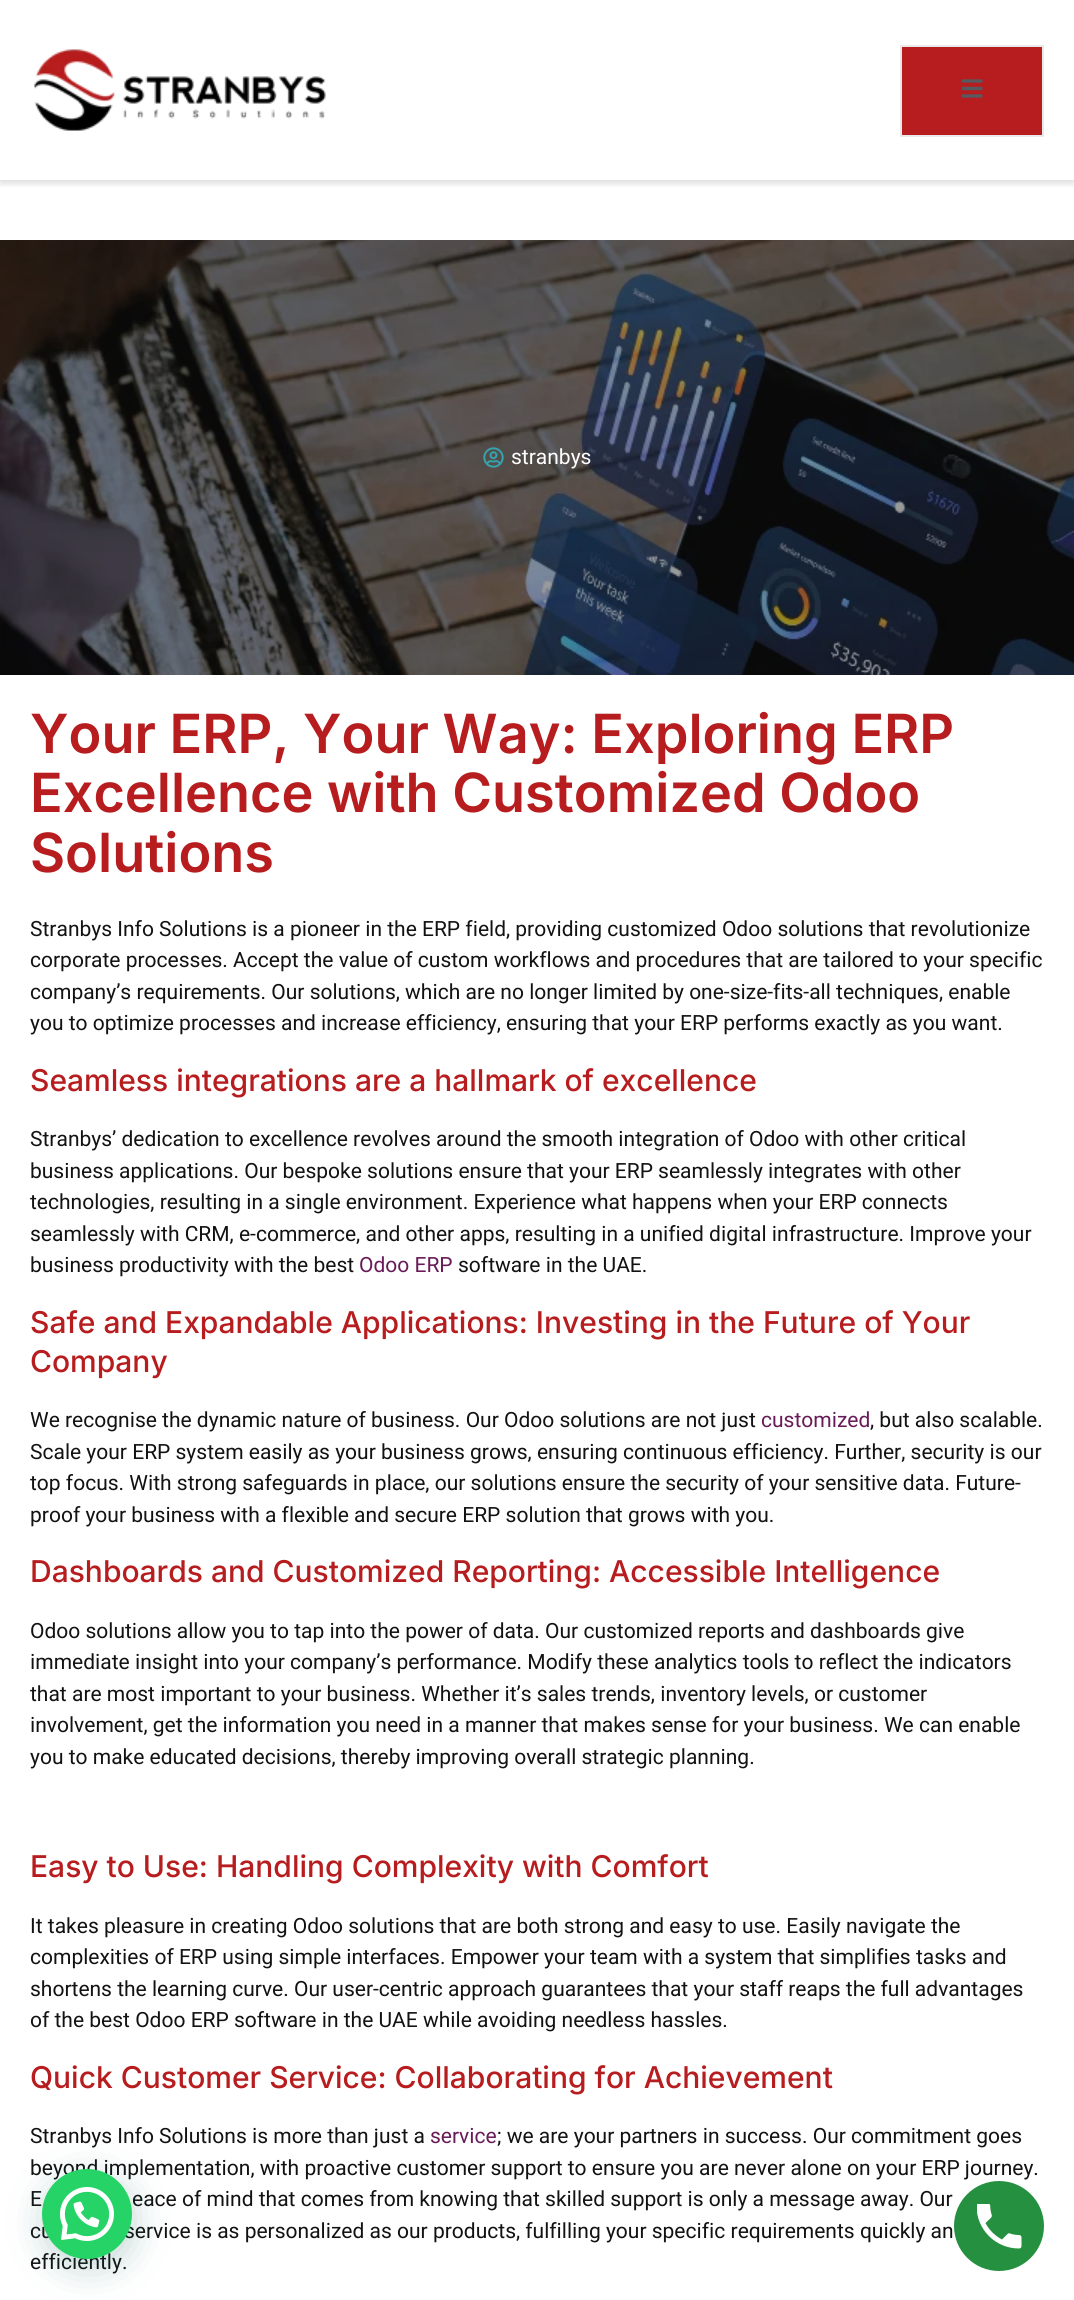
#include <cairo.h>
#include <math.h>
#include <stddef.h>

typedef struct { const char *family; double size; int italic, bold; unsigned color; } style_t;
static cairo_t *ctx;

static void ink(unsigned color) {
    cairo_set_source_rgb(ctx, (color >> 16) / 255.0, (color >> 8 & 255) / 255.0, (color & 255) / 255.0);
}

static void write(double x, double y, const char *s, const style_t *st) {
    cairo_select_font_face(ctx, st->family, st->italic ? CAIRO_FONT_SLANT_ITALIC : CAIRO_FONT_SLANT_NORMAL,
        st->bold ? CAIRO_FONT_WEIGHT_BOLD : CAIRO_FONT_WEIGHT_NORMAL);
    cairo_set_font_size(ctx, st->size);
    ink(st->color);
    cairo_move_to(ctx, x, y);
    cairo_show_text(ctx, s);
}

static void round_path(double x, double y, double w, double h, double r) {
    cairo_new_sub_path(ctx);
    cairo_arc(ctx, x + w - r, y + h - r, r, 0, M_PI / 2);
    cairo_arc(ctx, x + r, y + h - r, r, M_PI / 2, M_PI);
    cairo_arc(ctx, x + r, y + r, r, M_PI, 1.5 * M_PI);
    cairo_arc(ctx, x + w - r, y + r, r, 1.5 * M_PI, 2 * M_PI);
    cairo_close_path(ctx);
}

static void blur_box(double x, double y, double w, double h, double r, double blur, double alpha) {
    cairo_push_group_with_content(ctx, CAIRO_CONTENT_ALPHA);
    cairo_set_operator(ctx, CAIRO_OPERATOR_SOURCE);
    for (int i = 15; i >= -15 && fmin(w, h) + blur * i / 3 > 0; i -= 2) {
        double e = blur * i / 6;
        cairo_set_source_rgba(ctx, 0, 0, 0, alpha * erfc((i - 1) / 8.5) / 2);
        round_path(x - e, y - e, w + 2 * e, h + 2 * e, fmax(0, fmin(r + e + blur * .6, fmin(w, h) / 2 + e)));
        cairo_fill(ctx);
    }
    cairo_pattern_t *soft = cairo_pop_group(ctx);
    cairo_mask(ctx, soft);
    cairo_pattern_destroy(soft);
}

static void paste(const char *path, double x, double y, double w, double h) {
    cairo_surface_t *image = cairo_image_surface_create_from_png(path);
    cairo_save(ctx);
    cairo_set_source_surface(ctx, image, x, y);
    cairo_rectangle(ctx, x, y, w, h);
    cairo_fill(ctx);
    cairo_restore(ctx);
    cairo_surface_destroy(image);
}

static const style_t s1 = {"Heebo", 21, 0, 0, 0xffffff};
static const style_t s2 = {"Inter SemiBold", 54, 0, 0, 0xb71c1e};
static const style_t s3 = {"Heebo", 21, 0, 0, 0x121212};
static const style_t s4 = {"Inter Medium", 30, 0, 0, 0xb71c1e};
static const style_t s5 = {"Heebo", 21, 0, 0, 0x681b58};

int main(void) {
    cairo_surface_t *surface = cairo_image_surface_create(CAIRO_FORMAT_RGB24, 1074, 2300);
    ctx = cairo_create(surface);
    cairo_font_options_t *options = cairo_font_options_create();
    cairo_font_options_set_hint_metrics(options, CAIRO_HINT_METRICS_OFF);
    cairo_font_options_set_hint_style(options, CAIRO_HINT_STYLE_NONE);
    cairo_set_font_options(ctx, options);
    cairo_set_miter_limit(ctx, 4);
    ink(0xffffff);
    cairo_paint(ctx);
    cairo_save(ctx);
    cairo_rectangle(ctx, 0, 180, 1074, 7);
    cairo_clip(ctx);
    ink(0x000000);
    blur_box(0, 3, 1074, 180, 0, 4, 0.15);
    cairo_restore(ctx);
    paste("pic1.png", 34, 49, 292, 82);
    ink(0xb71c1e);
    cairo_rectangle(ctx, 901, 46, 142, 90);
    cairo_fill_preserve(ctx);
    ink(0xeaeaeb);
    cairo_stroke(ctx);
    paste("pic2.png", 962, 79, 21, 19);
    paste("pic3.png", 0, 240, 1074, 435);
    paste("pic4.png", 483, 447, 21, 21);
    write(511, 464, "stranbys", &s1);
    write(30, 753, "Your ERP, Your Way: Exploring ERP", &s2);
    write(30, 812, "Excellence with Customized Odoo", &s2);
    write(30, 872, "Solutions", &s2);
    write(30, 936, "Stranbys Info Solutions is a pioneer in the ERP field, providing customized Odoo solutions that revolutionize", &s3);
    write(30, 967, "corporate processes. Accept the value of custom workflows and procedures that are tailored to your specific", &s3);
    write(30, 999, "company’s requirements. Our solutions, which are no longer limited by one-size-fits-all techniques, enable", &s3);
    write(30, 1030, "you to optimize processes and increase efficiency, ensuring that your ERP performs exactly as you want.", &s3);
    write(30, 1091, "Seamless integrations are a hallmark of excellence", &s4);
    write(30, 1146, "Stranbys’ dedication to excellence revolves around the smooth integration of Odoo with other critical", &s3);
    write(30, 1178, "business applications. Our bespoke solutions ensure that your ERP seamlessly integrates with other", &s3);
    write(30, 1209, "technologies, resulting in a single environment. Experience what happens when your ERP connects", &s3);
    write(30, 1241, "seamlessly with CRM, e-commerce, and other apps, resulting in a unified digital infrastructure. Improve your", &s3);
    write(30, 1272, "business productivity with the best", &s3);
    write(359, 1272, "Odoo ERP", &s5);
    write(458, 1272, "software in the UAE.", &s3);
    write(30, 1333, "Safe and Expandable Applications: Investing in the Future of Your", &s4);
    write(30, 1372, "Company", &s4);
    write(30, 1427, "We recognise the dynamic nature of business. Our Odoo solutions are not just", &s3);
    write(761, 1427, "customized", &s5);
    write(870, 1427, ", but also scalable.", &s3);
    write(30, 1459, "Scale your ERP system easily as your business grows, ensuring continuous efficiency. Further, security is our", &s3);
    write(30, 1490, "top focus. With strong safeguards in place, our solutions ensure the security of your sensitive data. Future-", &s3);
    write(30, 1522, "proof your business with a flexible and secure ERP solution that grows with you.", &s3);
    write(30, 1582, "Dashboards and Customized Reporting: Accessible Intelligence", &s4);
    write(30, 1638, "Odoo solutions allow you to tap into the power of data. Our customized reports and dashboards give", &s3);
    write(30, 1669, "immediate insight into your company’s performance. Modify these analytics tools to reflect the indicators", &s3);
    write(30, 1701, "that are most important to your business. Whether it’s sales trends, inventory levels, or customer", &s3);
    write(30, 1732, "involvement, get the information you need in a manner that makes sense for your business. We can enable", &s3);
    write(30, 1764, "you to make educated decisions, thereby improving overall strategic planning.", &s3);
    write(30, 1877, "Easy to Use: Handling Complexity with Comfort", &s4);
    write(30, 1933, "It takes pleasure in creating Odoo solutions that are both strong and easy to use. Easily navigate the", &s3);
    write(30, 1964, "complexities of ERP using simple interfaces. Empower your team with a system that simplifies tasks and", &s3);
    write(30, 1996, "shortens the learning curve. Our user-centric approach guarantees that your staff reaps the full advantages", &s3);
    write(30, 2027, "of the best Odoo ERP software in the UAE while avoiding needless hassles.", &s3);
    write(30, 2088, "Quick Customer Service: Collaborating for Achievement", &s4);
    write(30, 2143, "Stranbys Info Solutions is more than just a", &s3);
    write(430, 2143, "service", &s5);
    write(497, 2143, "; we are your partners in success. Our commitment goes", &s3);
    write(30, 2175, "beyond implementation, with proactive customer support to ensure you are never alone on your ERP journey.", &s3);
    write(30, 2206, "E", &s3);
    write(132, 2206, "eace of mind that comes from knowing that skilled support is only a message away. Our", &s3);
    write(30, 2238, "cu", &s3);
    write(124, 2238, "service is as personalized as our products, fulfilling your specific requirements quickly an", &s3);
    write(30, 2269, "efficiently.", &s3);
    ink(0x075e54);
    blur_box(44, 2178, 90, 90, 45, 18, 0.24);
    ink(0x25d366);
    cairo_arc(ctx, 87, 2214, 45, 0, 2 * M_PI);
    cairo_fill(ctx);
    paste("pic5.png", 60, 2187, 54, 54);
    ink(0x269041);
    cairo_arc(ctx, 999, 2226, 45, 0, 2 * M_PI);
    cairo_fill(ctx);
    paste("pic6.png", 977, 2204, 45, 45);
    cairo_surface_write_to_png(surface, "screenshot.png");
    cairo_font_options_destroy(options);
    cairo_destroy(ctx);
    cairo_surface_destroy(surface);
    return 0;
}
